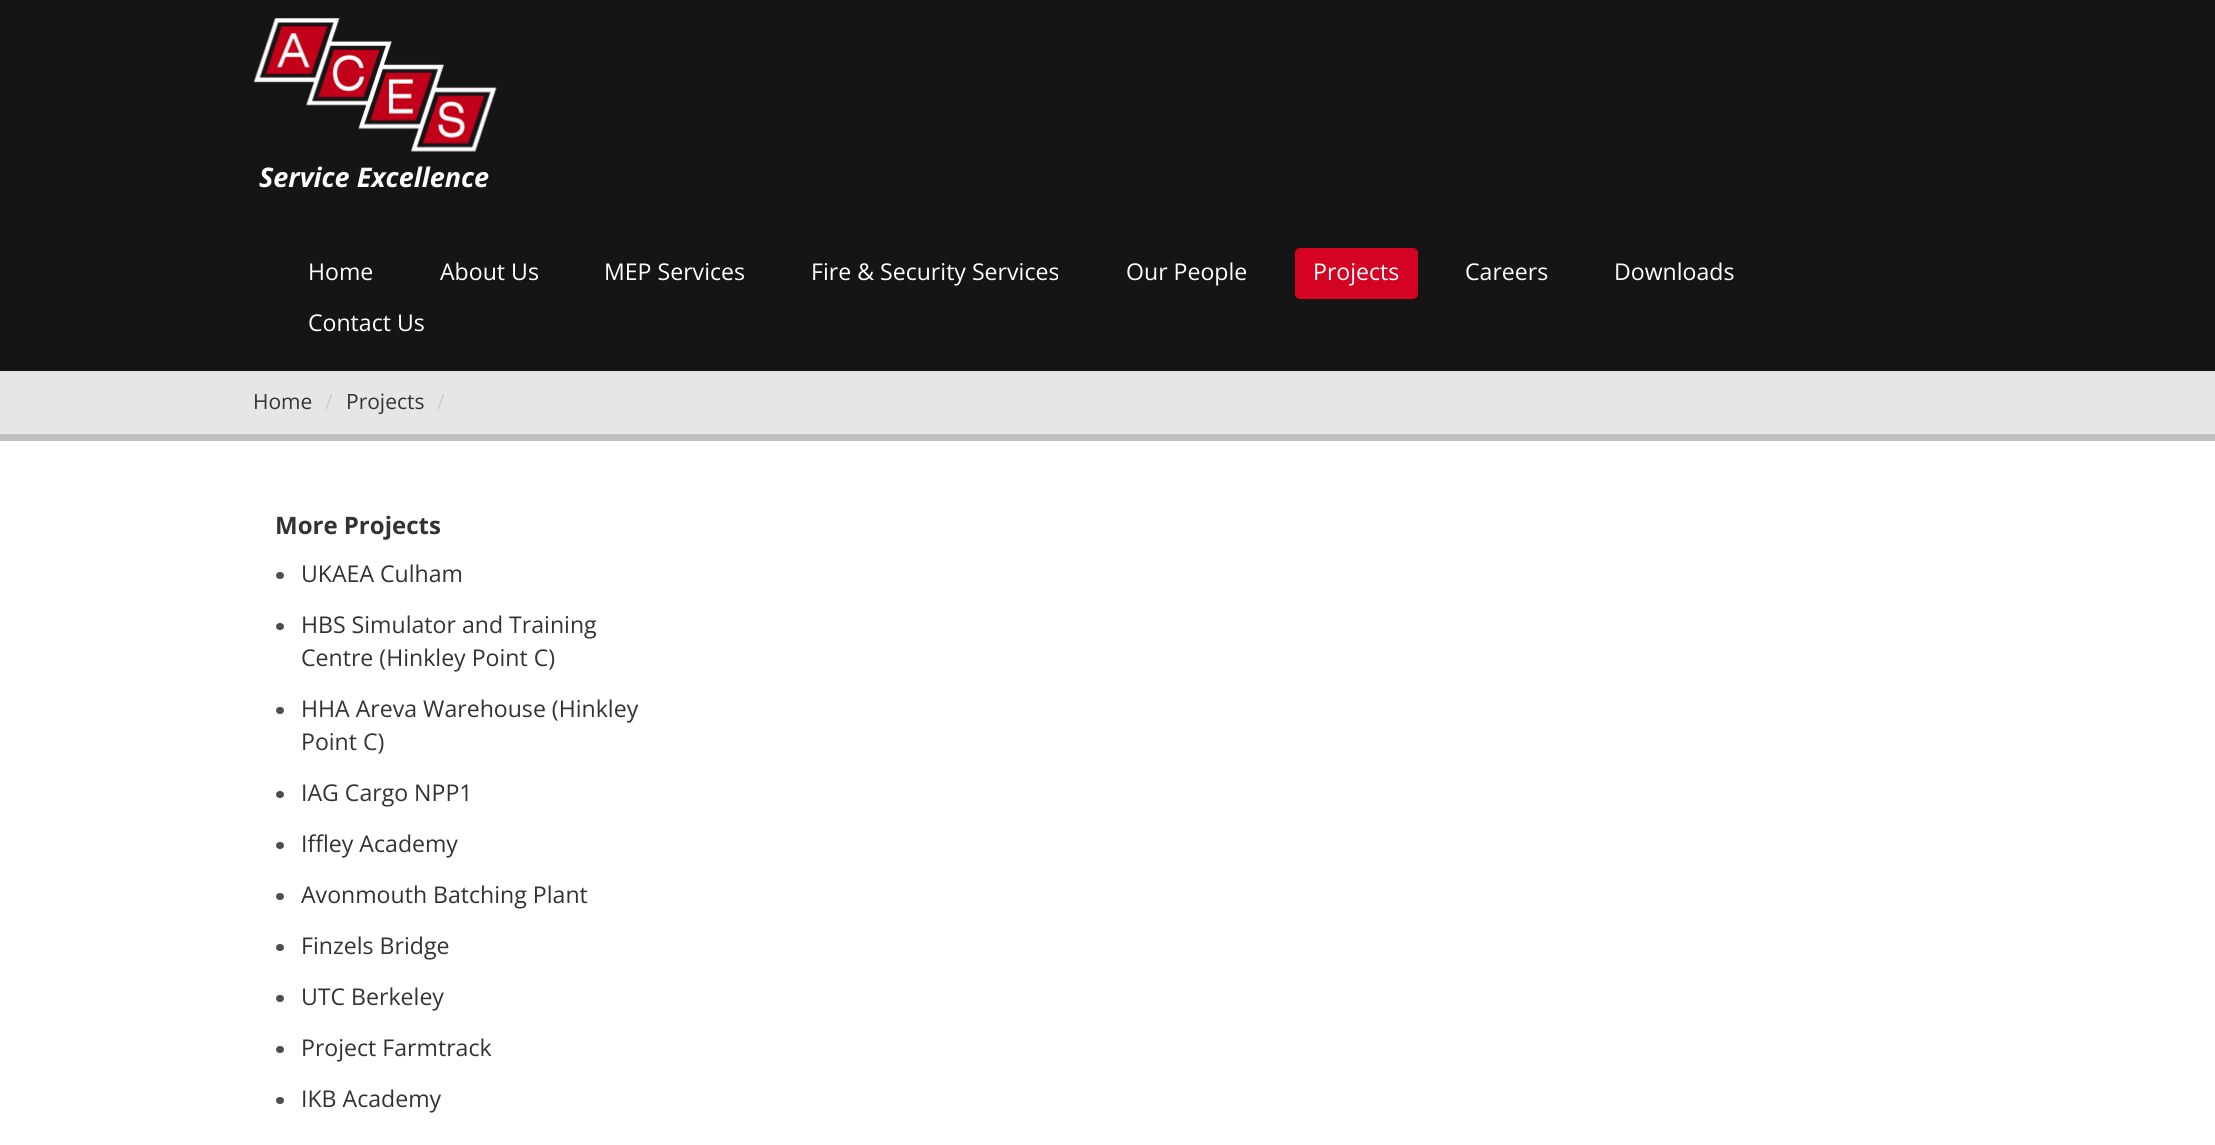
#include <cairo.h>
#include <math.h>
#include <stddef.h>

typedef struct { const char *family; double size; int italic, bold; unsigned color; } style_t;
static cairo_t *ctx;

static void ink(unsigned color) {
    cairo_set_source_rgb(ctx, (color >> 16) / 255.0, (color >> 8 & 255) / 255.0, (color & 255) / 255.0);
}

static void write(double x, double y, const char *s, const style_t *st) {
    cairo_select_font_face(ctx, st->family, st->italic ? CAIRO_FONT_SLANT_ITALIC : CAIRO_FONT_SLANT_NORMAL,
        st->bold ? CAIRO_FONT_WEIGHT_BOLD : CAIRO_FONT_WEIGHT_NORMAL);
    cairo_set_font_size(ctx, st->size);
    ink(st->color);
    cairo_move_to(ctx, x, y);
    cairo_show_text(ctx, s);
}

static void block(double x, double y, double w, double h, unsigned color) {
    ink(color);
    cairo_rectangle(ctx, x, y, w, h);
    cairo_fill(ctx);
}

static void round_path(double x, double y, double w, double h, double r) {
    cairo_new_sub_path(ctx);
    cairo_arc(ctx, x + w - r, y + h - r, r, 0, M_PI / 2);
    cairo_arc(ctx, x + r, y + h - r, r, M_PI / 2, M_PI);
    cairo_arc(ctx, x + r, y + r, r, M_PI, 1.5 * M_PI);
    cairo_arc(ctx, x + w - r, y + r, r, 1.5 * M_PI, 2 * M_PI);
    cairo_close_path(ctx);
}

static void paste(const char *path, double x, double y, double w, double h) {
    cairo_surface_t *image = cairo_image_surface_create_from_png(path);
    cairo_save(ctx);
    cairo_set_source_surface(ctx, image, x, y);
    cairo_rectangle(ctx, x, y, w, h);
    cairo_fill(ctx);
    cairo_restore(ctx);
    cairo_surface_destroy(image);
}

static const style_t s1 = {"Open Sans", 27, 1, 1, 0xffffff};
static const style_t s2 = {"Open Sans", 23.1, 0, 0, 0xffffff};
static const style_t s3 = {"Open Sans", 21, 0, 0, 0x333333};
static const style_t s4 = {"Open Sans", 21, 0, 0, 0xcccccc};
static const style_t s5 = {"Open Sans", 24, 0, 1, 0x333333};
static const style_t s6 = {"Open Sans", 23.1, 0, 0, 0x333333};

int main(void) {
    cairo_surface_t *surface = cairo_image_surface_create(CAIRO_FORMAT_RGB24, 2215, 1145);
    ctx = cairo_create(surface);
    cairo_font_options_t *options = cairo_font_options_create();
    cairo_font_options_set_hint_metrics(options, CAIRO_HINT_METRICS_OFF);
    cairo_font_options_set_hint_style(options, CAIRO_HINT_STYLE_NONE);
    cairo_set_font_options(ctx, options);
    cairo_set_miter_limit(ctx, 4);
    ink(0xffffff);
    cairo_paint(ctx);
    block(0, 0, 2215, 371, 0x151515);
    paste("pic1.png", 253, 18, 244, 134);
    write(259, 187, "Service Excellence", &s1);
    write(308, 280, "Home", &s2);
    write(440, 280, "About Us", &s2);
    write(604, 280, "MEP Services", &s2);
    write(811, 280, "Fire & Security Services", &s2);
    write(1126, 280, "Our People", &s2);
    ink(0xd40223);
    round_path(1295, 248, 123, 51, 5);
    cairo_fill(ctx);
    write(1313, 280, "Projects", &s2);
    write(1465, 280, "Careers", &s2);
    write(1614, 280, "Downloads", &s2);
    write(308, 331, "Contact Us", &s2);
    block(0, 371, 2215, 63, 0xe6e6e6);
    block(0, 434, 2215, 7, 0xbfbfbf);
    write(253, 409, "Home", &s3);
    write(325, 409, "/", &s4);
    write(346, 409, "Projects", &s3);
    write(437, 409, "/", &s4);
    write(275, 534, "More Projects", &s5);
    ink(0x4e4e4e);
    round_path(276, 572, 8, 7, 3.5);
    cairo_fill(ctx);
    write(301, 582, "UKAEA Culham", &s6);
    ink(0x4e4e4e);
    round_path(276, 623, 8, 7, 3.5);
    cairo_fill(ctx);
    write(301, 633, "HBS Simulator and Training", &s6);
    write(301, 666, "Centre (Hinkley Point C)", &s6);
    ink(0x4e4e4e);
    round_path(276, 707, 8, 7, 3.5);
    cairo_fill(ctx);
    write(301, 717, "HHA Areva Warehouse (Hinkley", &s6);
    write(301, 750, "Point C)", &s6);
    ink(0x4e4e4e);
    round_path(276, 791, 8, 7, 3.5);
    cairo_fill(ctx);
    write(301, 801, "IAG Cargo NPP1", &s6);
    ink(0x4e4e4e);
    round_path(276, 842, 8, 7, 3.5);
    cairo_fill(ctx);
    write(301, 852, "Iffley Academy", &s6);
    ink(0x4e4e4e);
    round_path(276, 893, 8, 7, 3.5);
    cairo_fill(ctx);
    write(301, 903, "Avonmouth Batching Plant", &s6);
    ink(0x4e4e4e);
    round_path(276, 944, 8, 7, 3.5);
    cairo_fill(ctx);
    write(301, 954, "Finzels Bridge", &s6);
    ink(0x4e4e4e);
    round_path(276, 995, 8, 7, 3.5);
    cairo_fill(ctx);
    write(301, 1005, "UTC Berkeley", &s6);
    ink(0x4e4e4e);
    round_path(276, 1046, 8, 7, 3.5);
    cairo_fill(ctx);
    write(301, 1056, "Project Farmtrack", &s6);
    ink(0x4e4e4e);
    round_path(276, 1097, 8, 7, 3.5);
    cairo_fill(ctx);
    write(301, 1107, "IKB Academy", &s6);
    cairo_surface_write_to_png(surface, "screenshot.png");
    cairo_font_options_destroy(options);
    cairo_destroy(ctx);
    cairo_surface_destroy(surface);
    return 0;
}
